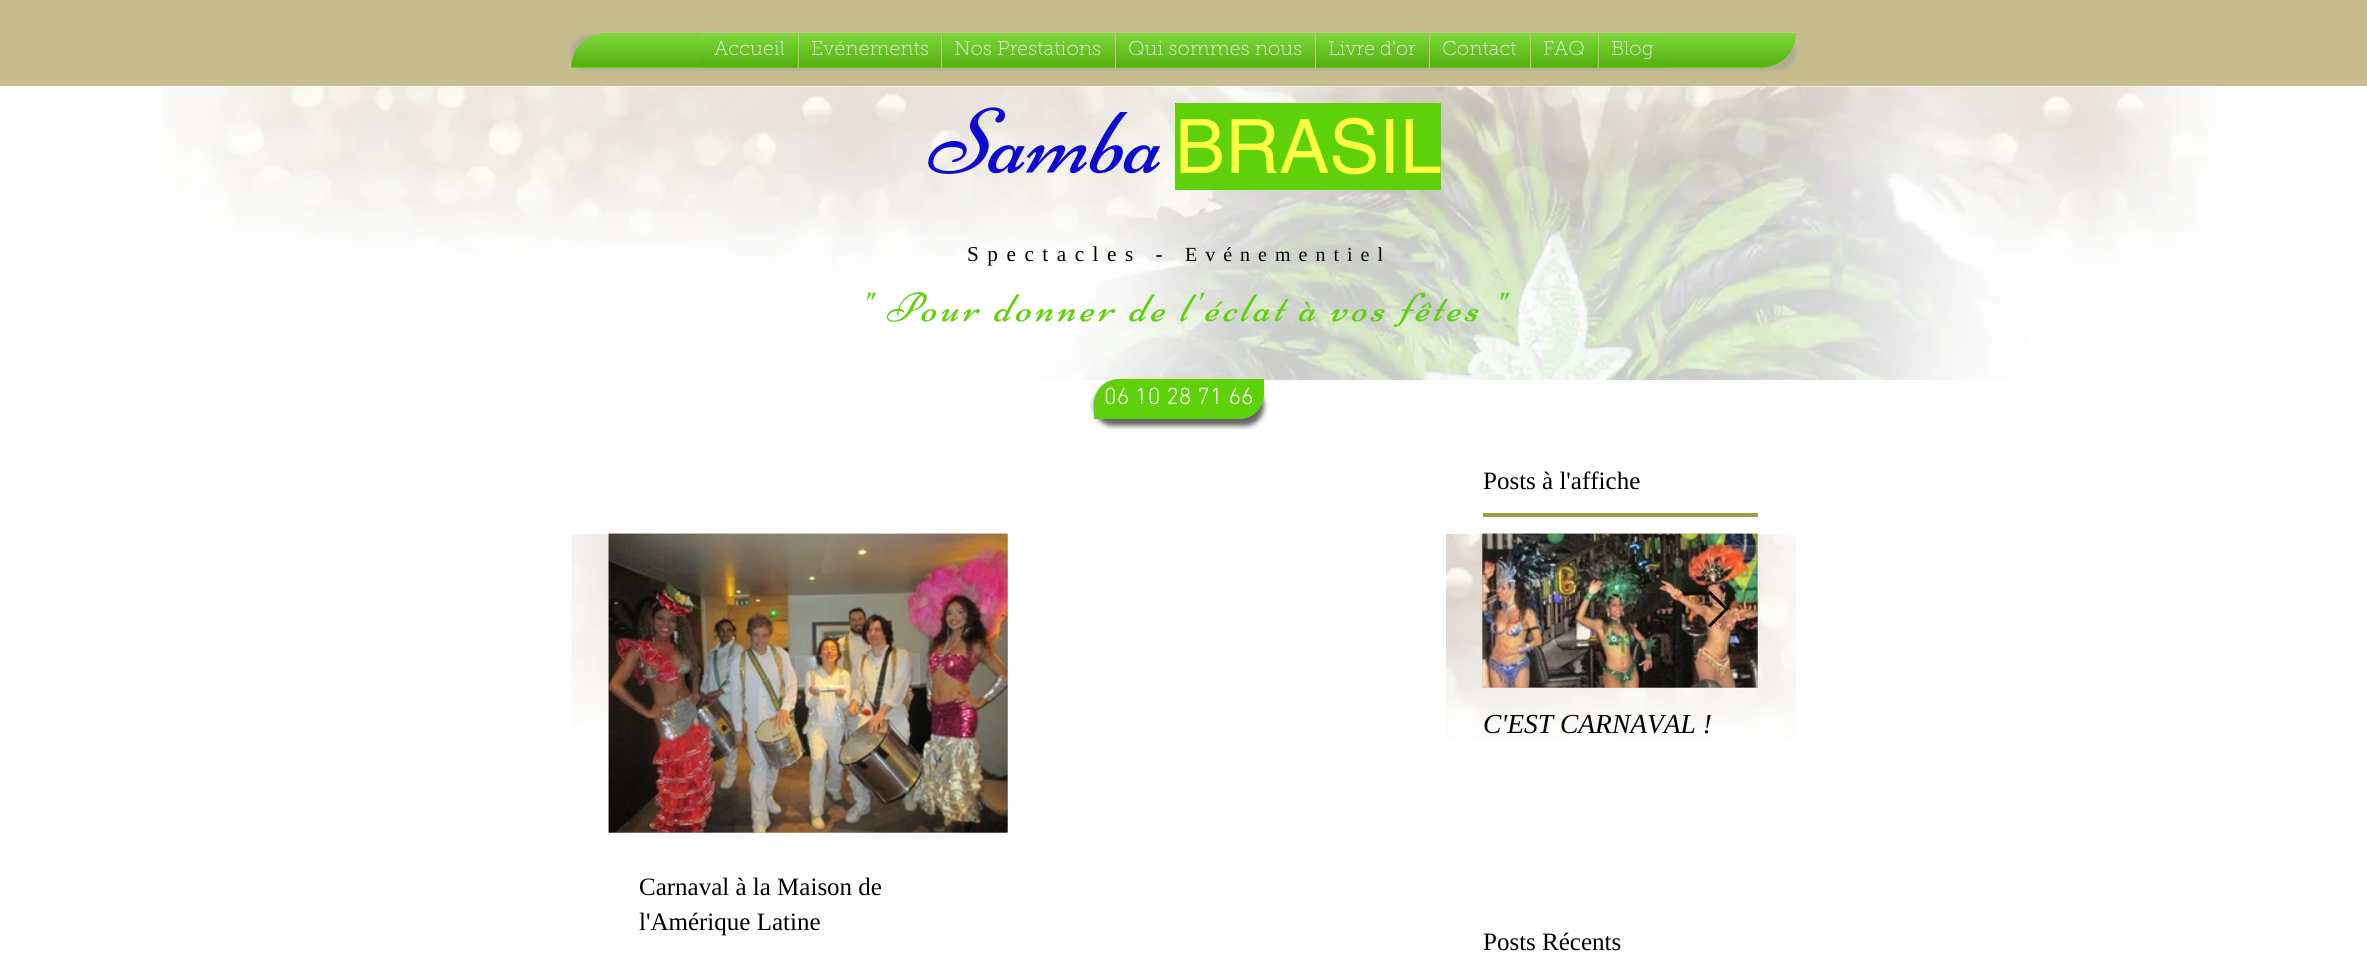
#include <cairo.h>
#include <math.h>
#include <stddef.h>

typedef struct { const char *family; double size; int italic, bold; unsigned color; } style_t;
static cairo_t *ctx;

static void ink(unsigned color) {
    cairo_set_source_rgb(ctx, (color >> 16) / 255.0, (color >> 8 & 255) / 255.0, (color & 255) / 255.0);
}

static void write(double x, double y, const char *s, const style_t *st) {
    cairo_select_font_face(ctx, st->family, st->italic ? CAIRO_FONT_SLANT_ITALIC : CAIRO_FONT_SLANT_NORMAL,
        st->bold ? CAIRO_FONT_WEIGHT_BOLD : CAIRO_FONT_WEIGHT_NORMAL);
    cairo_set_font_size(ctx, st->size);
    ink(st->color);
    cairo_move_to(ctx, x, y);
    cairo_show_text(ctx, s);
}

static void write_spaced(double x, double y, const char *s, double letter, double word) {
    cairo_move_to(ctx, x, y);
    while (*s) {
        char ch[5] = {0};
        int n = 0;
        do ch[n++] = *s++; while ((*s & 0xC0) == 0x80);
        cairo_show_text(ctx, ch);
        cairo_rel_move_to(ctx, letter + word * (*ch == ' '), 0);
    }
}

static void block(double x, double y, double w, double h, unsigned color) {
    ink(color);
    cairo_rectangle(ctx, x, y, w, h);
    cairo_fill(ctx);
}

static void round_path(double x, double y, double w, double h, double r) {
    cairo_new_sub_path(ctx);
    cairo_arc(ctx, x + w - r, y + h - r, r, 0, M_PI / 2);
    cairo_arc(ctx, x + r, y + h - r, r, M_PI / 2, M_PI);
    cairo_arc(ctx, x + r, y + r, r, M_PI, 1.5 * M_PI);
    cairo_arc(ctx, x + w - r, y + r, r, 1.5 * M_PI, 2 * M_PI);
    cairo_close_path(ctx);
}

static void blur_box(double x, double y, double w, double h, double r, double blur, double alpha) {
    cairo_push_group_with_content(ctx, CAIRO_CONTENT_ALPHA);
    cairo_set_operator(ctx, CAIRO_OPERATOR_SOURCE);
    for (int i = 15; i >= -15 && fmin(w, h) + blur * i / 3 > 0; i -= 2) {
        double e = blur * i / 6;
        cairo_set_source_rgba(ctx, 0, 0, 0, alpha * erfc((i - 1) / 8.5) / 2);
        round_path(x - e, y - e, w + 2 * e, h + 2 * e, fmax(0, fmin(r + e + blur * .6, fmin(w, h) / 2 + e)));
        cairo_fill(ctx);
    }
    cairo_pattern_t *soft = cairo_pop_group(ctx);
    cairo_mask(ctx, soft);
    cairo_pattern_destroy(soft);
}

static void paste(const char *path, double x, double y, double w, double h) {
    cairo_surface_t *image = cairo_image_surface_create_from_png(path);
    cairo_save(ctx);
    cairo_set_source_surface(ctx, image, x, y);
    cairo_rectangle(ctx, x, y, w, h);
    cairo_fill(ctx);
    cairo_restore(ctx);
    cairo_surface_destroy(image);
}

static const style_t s1 = {"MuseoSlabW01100 Thin", 20, 0, 0, 0xffffff};
static const style_t s2 = {"helvetica", 75, 0, 0, 0xfcff42};
static const style_t s3 = {"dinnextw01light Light", 23.75, 0, 0, 0xffffff};
static const style_t s4 = {"Liberation Serif", 25, 0, 0, 0x000000};
static const style_t s5 = {"Liberation Serif", 27.5, 1, 0, 0x000000};

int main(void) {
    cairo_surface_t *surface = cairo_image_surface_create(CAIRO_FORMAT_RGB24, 2367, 956);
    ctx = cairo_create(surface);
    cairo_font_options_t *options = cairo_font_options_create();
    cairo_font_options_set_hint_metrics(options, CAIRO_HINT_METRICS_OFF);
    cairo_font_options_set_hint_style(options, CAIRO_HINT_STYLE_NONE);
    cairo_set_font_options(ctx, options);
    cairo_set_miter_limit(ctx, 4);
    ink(0xffffff);
    cairo_paint(ctx);
    block(0, 0, 2367, 86, 0xc7bd8d);
    ink(0xa29e9e);
    blur_box(571, 35, 1225, 35, 35, 2, 0.6);
    ink(0x5fd10a);
    cairo_new_path(ctx);
    cairo_move_to(ctx, 606, 33);
    cairo_line_to(ctx, 1796, 33);
    cairo_curve_to(ctx, 1796, 52.5, 1780.5, 68, 1761, 68);
    cairo_line_to(ctx, 571, 68);
    cairo_curve_to(ctx, 571, 48.5, 586.5, 33, 606, 33);
    cairo_close_path(ctx);
    cairo_fill(ctx);
    paste("pic1.png", 571, 32, 1225, 35);
    paste("pic2.png", 571, 36, 1224, 31);
    block(703, 33, 95, 34, 0x5fd10a);
    write(714, 55, "Accueil", &s1);
    paste("pic3.png", 702, 32, 96, 35);
    paste("pic4.png", 702, 36, 96, 32);
    block(799, 33, 142, 34, 0x5fd10a);
    block(798, 33, 1, 35, 0xc7bd8d);
    write(811, 55, "Evénements", &s1);
    paste("pic5.png", 798, 32, 143, 35);
    paste("pic6.png", 798, 36, 143, 32);
    block(942, 33, 173, 34, 0x5fd10a);
    block(941, 33, 1, 35, 0xc7bd8d);
    write(954, 55, "Nos Prestations", &s1);
    paste("pic7.png", 942, 32, 173, 35);
    paste("pic8.png", 942, 36, 173, 32);
    block(1116, 33, 199, 34, 0x5fd10a);
    block(1115, 33, 1, 35, 0xc7bd8d);
    write(1128, 55, "Qui sommes nous", &s1);
    paste("pic9.png", 1116, 32, 199, 35);
    paste("pic10.png", 1116, 36, 199, 32);
    block(1316, 33, 113, 34, 0x5fd10a);
    block(1315, 33, 1, 35, 0xc7bd8d);
    write(1328, 55, "Livre d'or", &s1);
    paste("pic11.png", 1316, 32, 113, 35);
    paste("pic12.png", 1316, 36, 113, 32);
    block(1430, 33, 100, 34, 0x5fd10a);
    block(1429, 33, 1, 35, 0xc7bd8d);
    write(1442, 55, "Contact", &s1);
    paste("pic13.png", 1430, 32, 100, 35);
    paste("pic14.png", 1430, 36, 100, 32);
    block(1531, 33, 67, 34, 0x5fd10a);
    block(1530, 33, 1, 35, 0xc7bd8d);
    write(1543, 55, "FAQ", &s1);
    paste("pic15.png", 1531, 32, 67, 35);
    paste("pic16.png", 1531, 36, 67, 32);
    block(1599, 33, 67, 34, 0x5fd10a);
    block(1598, 33, 1, 35, 0xc7bd8d);
    write(1611, 55, "Blog", &s1);
    paste("pic17.png", 1598, 32, 69, 35);
    paste("pic18.png", 1598, 36, 69, 32);
    paste("pic19.png", 161, 86, 2056, 294);
    paste("pic20.png", 928, 107, 233, 67);
    block(1175, 103, 266, 87, 0x5fd10a);
    write(1175, 173, "BRASIL", &s2);
    cairo_select_font_face(ctx, "Liberation Serif", CAIRO_FONT_SLANT_NORMAL, CAIRO_FONT_WEIGHT_NORMAL);
    cairo_set_font_size(ctx, 21.25);
    ink(0x000000);
    write_spaced(967, 261, "Spectacles -", 8.5, 0);
    cairo_set_font_size(ctx, 20);
    write_spaced(1185, 261, "Evénementiel", 8, 0);
    paste("pic21.png", 867, 292, 643, 35);
    ink(0x000000);
    blur_box(1094, 386, 170, 40, 25, 2.5, 0.6);
    ink(0x5fd10a);
    cairo_new_path(ctx);
    cairo_move_to(ctx, 1119, 379);
    cairo_line_to(ctx, 1264, 379);
    cairo_line_to(ctx, 1264, 394);
    cairo_curve_to(ctx, 1264, 408, 1253, 419, 1239, 419);
    cairo_line_to(ctx, 1094, 419);
    cairo_line_to(ctx, 1094, 404);
    cairo_curve_to(ctx, 1094, 390, 1105, 379, 1119, 379);
    cairo_close_path(ctx);
    cairo_fill(ctx);
    write(1104, 404, "06 10 28 71 66", &s3);
    write(1483, 489, "Posts à l'affiche", &s4);
    block(1483, 513, 275, 4, 0xa39a46);
    paste("pic22.png", 571, 534, 1225, 205);
    paste("pic23.png", 1482, 533, 276, 155);
    paste("pic24.png", 1482, 533, 276, 155);
    cairo_set_source_rgba(ctx, 0, 0, 0, 0.9);
    cairo_new_path(ctx);
    cairo_move_to(ctx, 1708.5, 593);
    cairo_line_to(ctx, 1710, 591.5);
    cairo_line_to(ctx, 1728, 609);
    cairo_line_to(ctx, 1710, 627);
    cairo_line_to(ctx, 1708.5, 625.5);
    cairo_line_to(ctx, 1725, 609);
    cairo_close_path(ctx);
    cairo_fill_preserve(ctx);
    cairo_set_line_width(ctx, 1);
    cairo_stroke(ctx);
    write(1483, 733, "C'EST CARNAVAL !", &s5);
    block(609, 534, 837, 205, 0xffffff);
    paste("pic25.png", 608, 533, 400, 300);
    paste("pic26.png", 608, 533, 400, 300);
    write(639, 895, "Carnaval à la Maison de", &s4);
    write(639, 930, "l'Amérique Latine", &s4);
    write(1483, 950, "Posts Récents", &s4);
    cairo_surface_write_to_png(surface, "screenshot.png");
    cairo_font_options_destroy(options);
    cairo_destroy(ctx);
    cairo_surface_destroy(surface);
    return 0;
}
